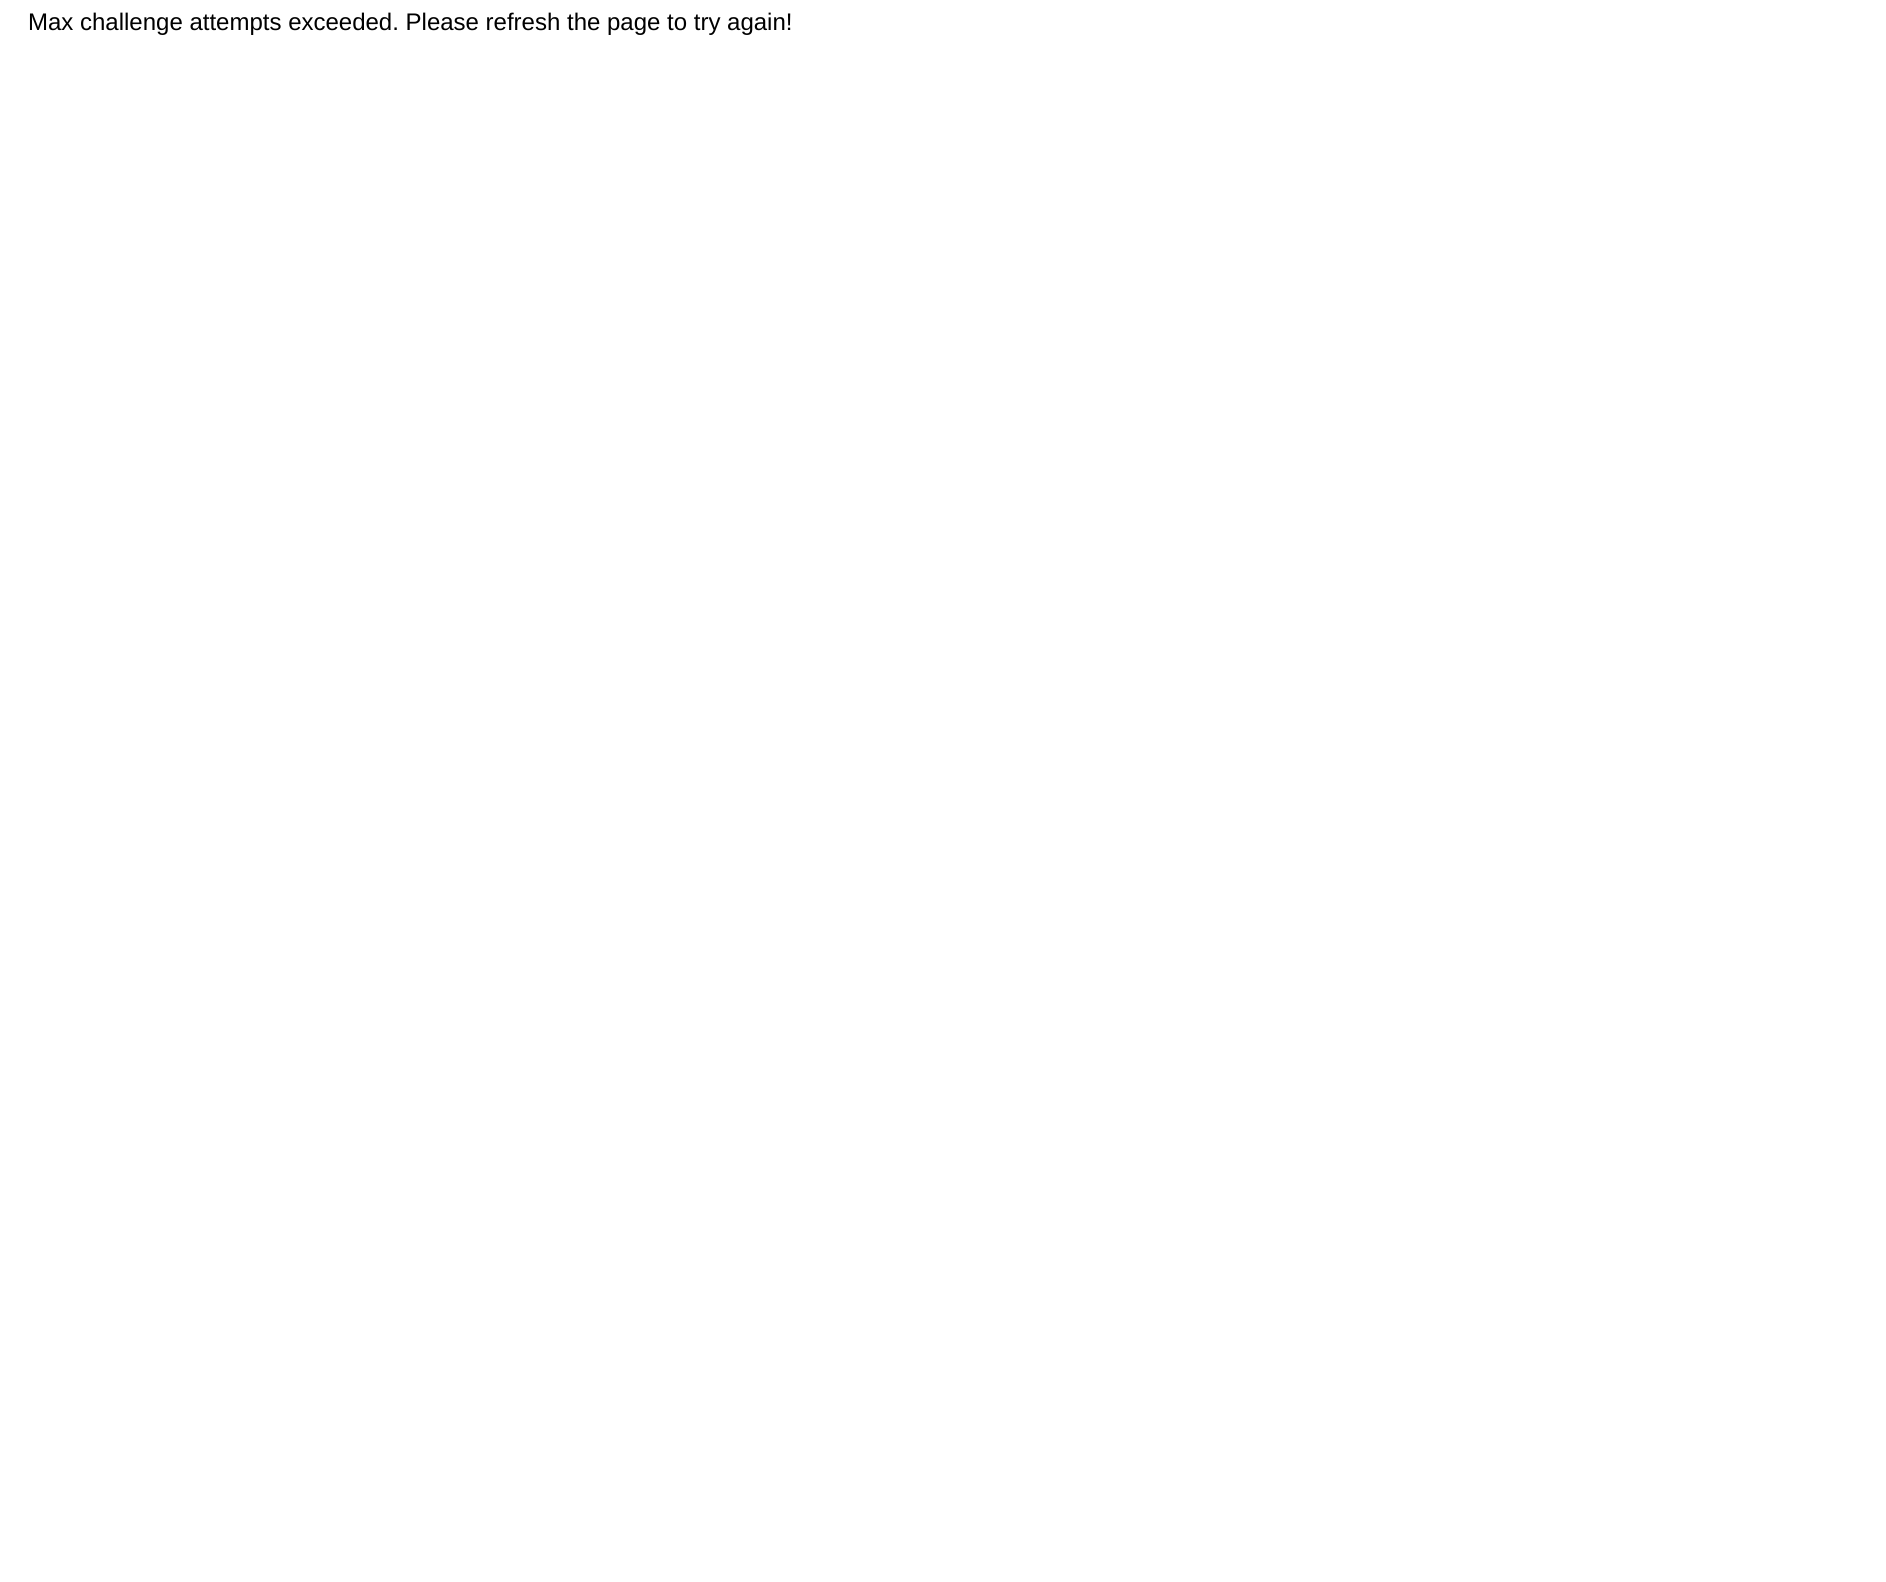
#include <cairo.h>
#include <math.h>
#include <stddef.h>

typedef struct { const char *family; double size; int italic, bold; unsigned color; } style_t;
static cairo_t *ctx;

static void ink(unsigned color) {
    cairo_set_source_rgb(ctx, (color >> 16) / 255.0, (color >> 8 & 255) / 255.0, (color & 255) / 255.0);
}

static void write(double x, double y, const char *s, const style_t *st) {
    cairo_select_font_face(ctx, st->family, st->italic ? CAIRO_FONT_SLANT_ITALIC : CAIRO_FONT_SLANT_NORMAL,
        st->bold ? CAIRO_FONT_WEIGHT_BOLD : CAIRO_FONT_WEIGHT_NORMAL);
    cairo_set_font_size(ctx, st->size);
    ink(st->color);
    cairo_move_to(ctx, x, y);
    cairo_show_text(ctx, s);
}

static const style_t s1 = {"Liberation Sans", 24, 0, 0, 0x000000};

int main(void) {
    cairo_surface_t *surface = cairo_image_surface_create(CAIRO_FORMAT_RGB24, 1886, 1582);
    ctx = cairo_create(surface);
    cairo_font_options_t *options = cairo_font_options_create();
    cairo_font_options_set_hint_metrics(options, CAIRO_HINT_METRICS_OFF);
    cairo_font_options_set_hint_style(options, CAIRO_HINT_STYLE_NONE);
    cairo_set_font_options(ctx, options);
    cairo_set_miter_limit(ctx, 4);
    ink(0xffffff);
    cairo_paint(ctx);
    write(28, 30, "Max challenge attempts exceeded. Please refresh the page to try again!", &s1);
    cairo_surface_write_to_png(surface, "screenshot.png");
    cairo_font_options_destroy(options);
    cairo_destroy(ctx);
    cairo_surface_destroy(surface);
    return 0;
}
